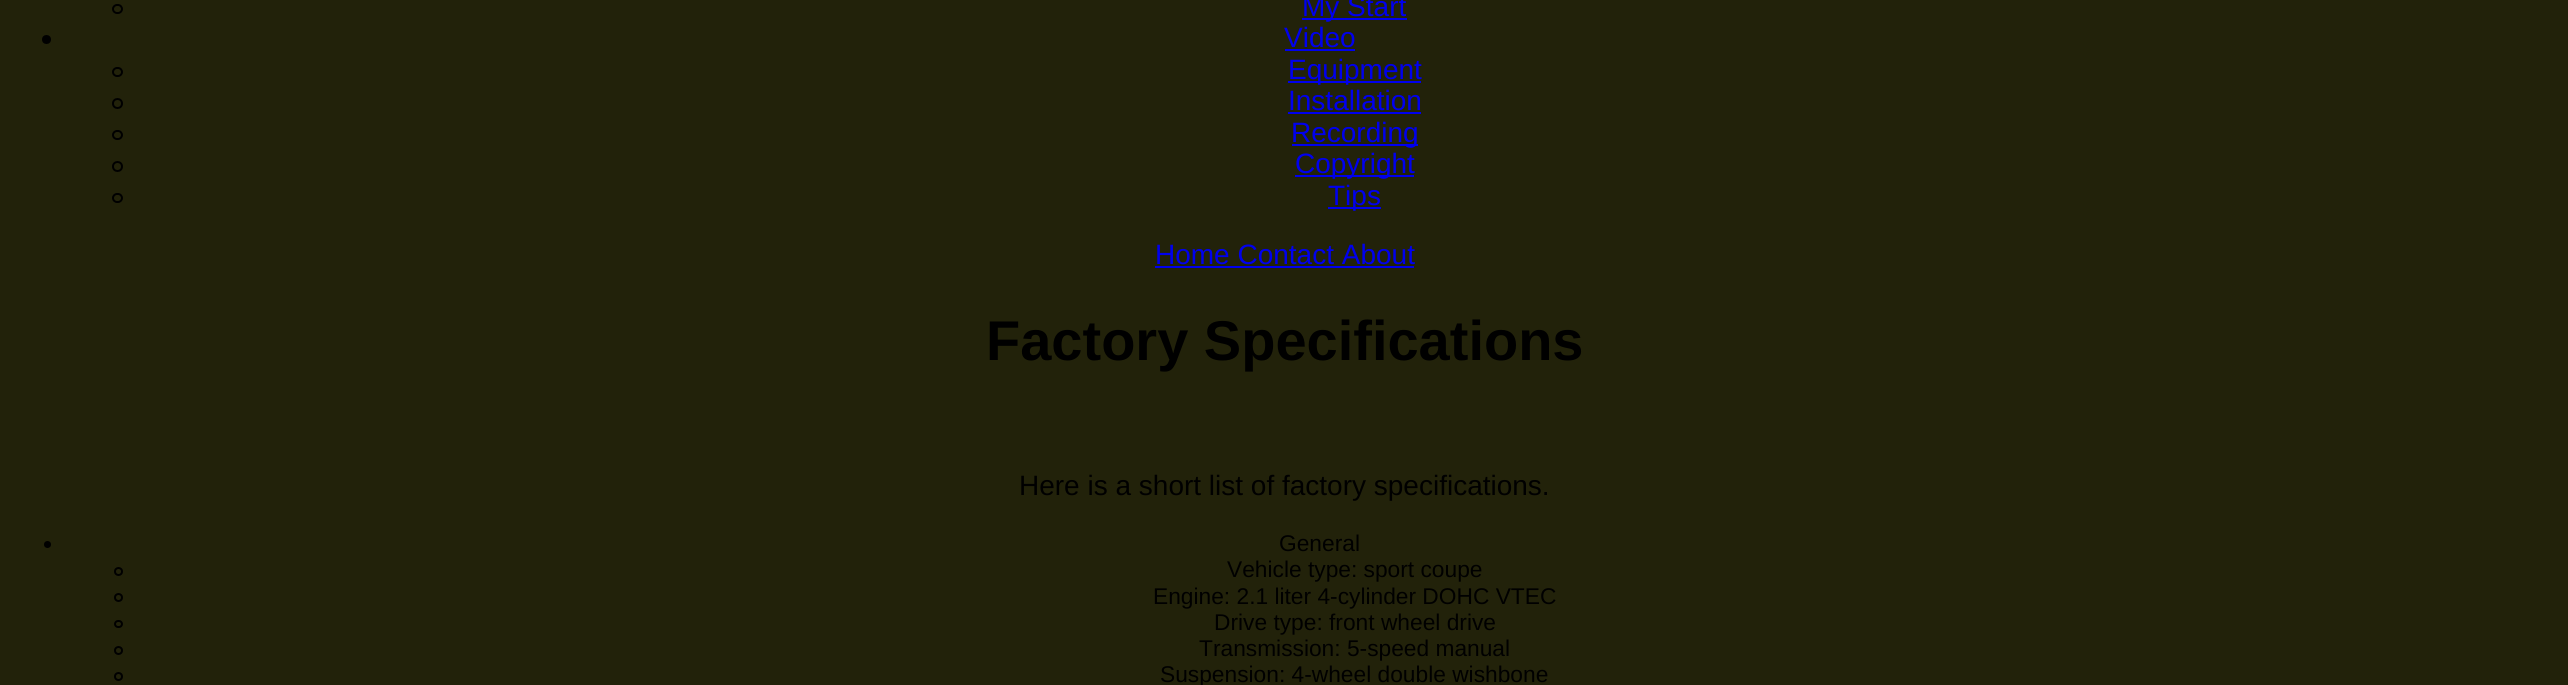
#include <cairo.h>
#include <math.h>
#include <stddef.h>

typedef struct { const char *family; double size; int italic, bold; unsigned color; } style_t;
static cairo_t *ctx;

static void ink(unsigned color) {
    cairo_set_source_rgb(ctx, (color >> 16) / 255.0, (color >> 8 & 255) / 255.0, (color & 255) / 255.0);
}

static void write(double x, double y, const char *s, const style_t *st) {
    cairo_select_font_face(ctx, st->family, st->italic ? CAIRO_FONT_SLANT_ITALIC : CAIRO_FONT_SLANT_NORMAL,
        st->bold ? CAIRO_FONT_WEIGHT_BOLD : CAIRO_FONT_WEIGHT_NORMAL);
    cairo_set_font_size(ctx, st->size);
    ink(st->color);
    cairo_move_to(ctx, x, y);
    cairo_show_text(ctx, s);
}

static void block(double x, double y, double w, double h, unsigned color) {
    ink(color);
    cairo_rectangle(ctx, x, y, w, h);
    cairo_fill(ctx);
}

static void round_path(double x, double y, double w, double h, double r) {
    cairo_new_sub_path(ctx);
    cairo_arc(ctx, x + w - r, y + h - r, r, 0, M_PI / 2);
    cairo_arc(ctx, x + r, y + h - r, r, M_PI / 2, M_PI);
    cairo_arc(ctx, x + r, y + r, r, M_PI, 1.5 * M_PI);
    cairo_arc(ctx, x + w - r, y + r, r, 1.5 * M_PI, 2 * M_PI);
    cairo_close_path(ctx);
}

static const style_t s1 = {"Liberation Sans", 28, 0, 0, 0x0000ee};
static const style_t s2 = {"Liberation Sans", 56, 0, 1, 0x000000};
static const style_t s3 = {"Liberation Sans", 28, 0, 0, 0x000000};
static const style_t s4 = {"Liberation Sans", 22.75, 0, 0, 0x000000};

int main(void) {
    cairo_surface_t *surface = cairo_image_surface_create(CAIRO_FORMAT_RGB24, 2568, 685);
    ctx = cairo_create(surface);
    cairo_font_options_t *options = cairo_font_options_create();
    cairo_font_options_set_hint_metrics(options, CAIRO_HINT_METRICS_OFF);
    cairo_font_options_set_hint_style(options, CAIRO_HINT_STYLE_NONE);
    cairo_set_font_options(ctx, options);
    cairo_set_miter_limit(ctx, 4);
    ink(0x22220a);
    cairo_paint(ctx);
    round_path(113, 5, 9, 8, 4);
    ink(0x000000);
    cairo_stroke(ctx);
    block(1302, 18, 105, 2, 0x0000ee);
    write(1302, 16, "My Start", &s1);
    ink(0x000000);
    cairo_new_path(ctx);
    cairo_arc(ctx, 46.5, 39.5, 4.5, 0, 2 * M_PI);
    cairo_fill(ctx);
    write(1284, 47, "Video", &s1);
    block(1285, 49, 70, 2, 0x0000ee);
    round_path(113, 68, 9, 8, 4);
    ink(0x000000);
    cairo_stroke(ctx);
    block(1288, 81, 133, 2, 0x0000ee);
    write(1288, 79, "Equipment", &s1);
    cairo_new_path(ctx);
    cairo_arc(ctx, 117.5, 103.5, 4.5, 0, 2 * M_PI);
    ink(0x000000);
    cairo_stroke(ctx);
    write(1288, 110, "Installation", &s1);
    block(1288, 112, 133, 2, 0x0000ee);
    round_path(113, 131, 9, 8, 4);
    ink(0x000000);
    cairo_stroke(ctx);
    block(1292, 144, 126, 2, 0x0000ee);
    write(1291, 142, "Recording", &s1);
    cairo_new_path(ctx);
    cairo_arc(ctx, 117.5, 166.5, 4.5, 0, 2 * M_PI);
    ink(0x000000);
    cairo_stroke(ctx);
    block(1295, 175, 119, 2, 0x0000ee);
    write(1295, 173, "Copyright", &s1);
    round_path(113, 194, 9, 8, 4);
    ink(0x000000);
    cairo_stroke(ctx);
    block(1328, 207, 53, 2, 0x0000ee);
    write(1328, 205, "Tips", &s1);
    write(1155, 264, "Home Contact About", &s1);
    block(1155, 266, 259, 2, 0x0000ee);
    write(986, 360, "Factory Specifications", &s2);
    write(1019, 495, "Here is a short list of factory specifications.", &s3);
    cairo_new_path(ctx);
    cairo_arc(ctx, 47.5, 544.5, 3.5, 0, 2 * M_PI);
    cairo_fill(ctx);
    write(1279, 551, "General", &s4);
    cairo_new_path(ctx);
    cairo_arc(ctx, 118.5, 571.5, 3.5, 0, 2 * M_PI);
    cairo_stroke(ctx);
    write(1227, 577, "Vehicle type: sport coupe", &s4);
    cairo_new_path(ctx);
    cairo_arc(ctx, 118.5, 597.5, 3.5, 0, 2 * M_PI);
    cairo_stroke(ctx);
    write(1153, 604, "Engine: 2.1 liter 4-cylinder DOHC VTEC", &s4);
    round_path(115, 621, 7, 6, 3);
    cairo_stroke(ctx);
    write(1214, 630, "Drive type: front wheel drive", &s4);
    cairo_new_path(ctx);
    cairo_arc(ctx, 118.5, 650.5, 3.5, 0, 2 * M_PI);
    cairo_stroke(ctx);
    write(1199, 656, "Transmission: 5-speed manual", &s4);
    cairo_new_path(ctx);
    cairo_arc(ctx, 118.5, 676.5, 3.5, 0, 2 * M_PI);
    cairo_stroke(ctx);
    write(1160, 682, "Suspension: 4-wheel double wishbone", &s4);
    cairo_surface_write_to_png(surface, "screenshot.png");
    cairo_font_options_destroy(options);
    cairo_destroy(ctx);
    cairo_surface_destroy(surface);
    return 0;
}
